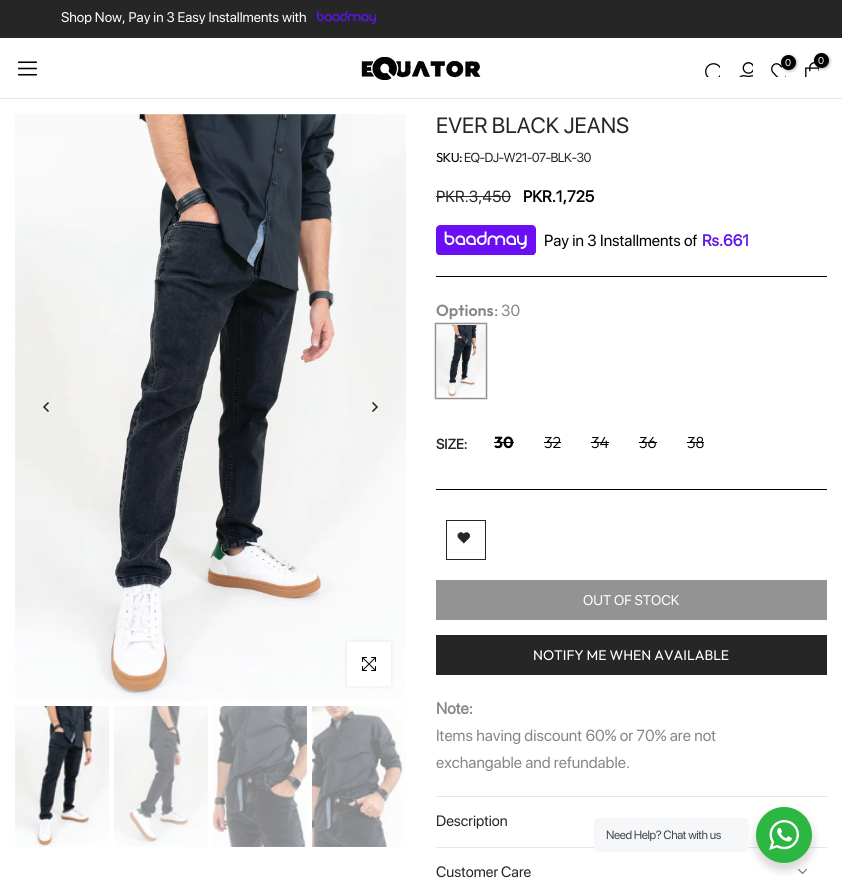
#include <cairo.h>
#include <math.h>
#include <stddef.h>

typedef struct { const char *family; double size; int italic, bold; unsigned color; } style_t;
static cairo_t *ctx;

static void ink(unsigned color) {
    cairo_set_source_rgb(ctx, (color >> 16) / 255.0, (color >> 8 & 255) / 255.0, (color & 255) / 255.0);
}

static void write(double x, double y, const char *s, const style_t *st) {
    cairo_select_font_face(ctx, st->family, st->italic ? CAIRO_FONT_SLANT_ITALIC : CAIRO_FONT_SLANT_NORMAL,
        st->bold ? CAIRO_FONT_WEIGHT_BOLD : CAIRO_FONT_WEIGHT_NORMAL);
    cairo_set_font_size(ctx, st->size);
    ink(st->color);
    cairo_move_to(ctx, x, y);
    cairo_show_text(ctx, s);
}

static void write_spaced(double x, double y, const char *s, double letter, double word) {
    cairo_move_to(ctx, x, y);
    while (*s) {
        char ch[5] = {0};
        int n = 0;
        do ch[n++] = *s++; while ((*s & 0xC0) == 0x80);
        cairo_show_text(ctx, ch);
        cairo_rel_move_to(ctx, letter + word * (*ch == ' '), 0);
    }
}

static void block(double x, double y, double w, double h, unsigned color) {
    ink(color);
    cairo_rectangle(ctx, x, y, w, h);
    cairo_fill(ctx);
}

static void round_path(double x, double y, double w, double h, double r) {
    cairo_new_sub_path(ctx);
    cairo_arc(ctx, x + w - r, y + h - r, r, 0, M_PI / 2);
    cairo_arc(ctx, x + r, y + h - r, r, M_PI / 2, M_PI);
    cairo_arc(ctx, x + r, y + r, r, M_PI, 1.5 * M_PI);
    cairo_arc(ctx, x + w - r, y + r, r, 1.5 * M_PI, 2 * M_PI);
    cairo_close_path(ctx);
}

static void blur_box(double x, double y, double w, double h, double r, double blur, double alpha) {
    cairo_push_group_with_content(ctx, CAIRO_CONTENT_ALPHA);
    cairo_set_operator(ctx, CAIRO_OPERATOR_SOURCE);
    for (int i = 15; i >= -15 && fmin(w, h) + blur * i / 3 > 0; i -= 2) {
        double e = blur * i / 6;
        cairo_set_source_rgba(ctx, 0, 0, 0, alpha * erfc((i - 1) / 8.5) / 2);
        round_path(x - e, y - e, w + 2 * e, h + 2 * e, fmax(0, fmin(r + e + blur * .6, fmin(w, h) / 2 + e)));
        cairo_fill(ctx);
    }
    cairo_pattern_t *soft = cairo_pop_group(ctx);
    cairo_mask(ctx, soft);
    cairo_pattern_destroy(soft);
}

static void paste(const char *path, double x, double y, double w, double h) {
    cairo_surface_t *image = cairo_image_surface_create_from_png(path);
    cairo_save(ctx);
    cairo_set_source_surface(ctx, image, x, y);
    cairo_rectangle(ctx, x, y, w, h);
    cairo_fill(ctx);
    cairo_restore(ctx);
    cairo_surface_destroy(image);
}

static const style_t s1 = {"SF Pro Display", 14, 0, 0, 0xffffff};
static const style_t s2 = {"SF Pro Display", 10, 0, 0, 0xffffff};
static const style_t s3 = {"SF Pro Display", 22, 0, 0, 0x262626};
static const style_t s4 = {"SF Pro Display", 16, 0, 0, 0x262626};
static const style_t s5 = {"SF Pro Display", 16, 0, 1, 0x000000};
static const style_t s6 = {"SF Pro Display", 16, 0, 0, 0x000000};
static const style_t s7 = {"SF Pro Display", 16, 0, 1, 0x6016eb};
static const style_t s8 = {"Outfit SemiBold", 16, 0, 0, 0x878787};
static const style_t s9 = {"Outfit", 16, 0, 0, 0x878787};
static const style_t s10 = {"SF Pro Display", 16, 0, 0, 0x878787};
static const style_t s11 = {"SF Pro Display", 14, 0, 1, 0x262626};
static const style_t s12 = {"Outfit", 16, 0, 1, 0x000000};
static const style_t s13 = {"Outfit Light", 16, 0, 0, 0x000000};
static const style_t s14 = {"Outfit", 14, 0, 0, 0xffffff};
static const style_t s15 = {"SF Pro Display", 16, 0, 1, 0x878787};
static const style_t s16 = {"SF Pro Display", 15, 0, 0, 0x262626};

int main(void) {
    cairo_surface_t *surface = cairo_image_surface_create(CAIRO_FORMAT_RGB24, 842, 893);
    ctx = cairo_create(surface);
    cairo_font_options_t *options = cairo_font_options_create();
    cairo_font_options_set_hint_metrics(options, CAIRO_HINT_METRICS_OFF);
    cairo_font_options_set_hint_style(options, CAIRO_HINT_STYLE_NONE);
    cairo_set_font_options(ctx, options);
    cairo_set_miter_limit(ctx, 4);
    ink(0xffffff);
    cairo_paint(ctx);
    block(0, 0, 842, 38, 0x262626);
    cairo_save(ctx);
    cairo_rectangle(ctx, 15, 6, 812, 18);
    cairo_clip(ctx);
    write(61, 22, "Shop Now, Pay in 3 Easy Installments with", &s1);
    cairo_restore(ctx);
    paste("pic1.png", 316, 11, 61, 13);
    block(0, 98, 842, 1, 0xe5e5e5);
    paste("pic2.png", 18, 61, 19, 15);
    paste("pic3.png", 361, 57, 120, 23);
    paste("pic4.png", 705, 63, 15, 14);
    paste("pic5.png", 739, 62, 14, 15);
    paste("pic6.png", 771, 63, 15, 14);
    ink(0x000000);
    blur_box(782, 56, 15, 15, 7.5, 1.5, 0.3);
    ink(0x000000);
    cairo_arc(ctx, 788.5, 62.5, 7.5, 0, 2 * M_PI);
    cairo_fill(ctx);
    write(785, 66, "0", &s2);
    paste("pic7.png", 805, 62, 14, 15);
    ink(0x000000);
    blur_box(815, 54, 15, 15, 7.5, 1.5, 0.3);
    ink(0x000000);
    cairo_arc(ctx, 821.5, 60.5, 7.5, 0, 2 * M_PI);
    cairo_fill(ctx);
    write(818, 64, "0", &s2);
    paste("pic8.png", 15, 114, 391, 587);
    paste("pic9.png", 43, 402, 6, 10);
    paste("pic10.png", 372, 402, 6, 10);
    ink(0x000000);
    blur_box(347, 642, 44, 44, 0, 2.5, 0.09);
    block(347, 642, 44, 44, 0xffffff);
    paste("pic11.png", 362, 657, 14, 14);
    paste("pic12.png", 15, 706, 94, 141);
    paste("pic13.png", 114, 706, 94, 141);
    paste("pic14.png", 213, 706, 94, 141);
    paste("pic15.png", 312, 706, 94, 141);
    write(436, 133, "EVER BLACK JEANS", &s3);
    cairo_select_font_face(ctx, "Outfit", CAIRO_FONT_SLANT_NORMAL, CAIRO_FONT_WEIGHT_NORMAL);
    cairo_set_font_size(ctx, 13);
    ink(0x000000);
    write_spaced(436, 162, "SKU:", -0.6, 0);
    cairo_select_font_face(ctx, "SF Pro Display", CAIRO_FONT_SLANT_NORMAL, CAIRO_FONT_WEIGHT_NORMAL);
    ink(0x262626);
    write_spaced(464, 162, "EQ-DJ-W21-07-BLK-30", -0.6, 0);
    write(436, 202, "PKR.3,450", &s4);
    block(436, 196, 75, 1, 0x262626);
    write(523, 202, "PKR.1,725", &s5);
    block(436, 276, 391, 1, 0x000000);
    paste("pic16.png", 436, 225, 100, 30);
    write(544, 246, "Pay in 3 Installments of", &s6);
    write(702, 246, "Rs.661", &s7);
    write(436, 316, "Options", &s8);
    write(494, 316, ":", &s9);
    write(501, 316, "30", &s10);
    ink(0x000000);
    blur_box(435, 323, 52, 76, 0, 0.5, 0.49);
    cairo_rectangle(ctx, 436.5, 324.5, 49, 73);
    ink(0xe3e3e3);
    cairo_set_line_width(ctx, 1);
    cairo_stroke(ctx);
    paste("pic17.png", 437, 325, 48, 72);
    block(436, 489, 391, 1, 0x000000);
    write(436, 449, "SIZE:", &s11);
    write(494, 448, "30", &s12);
    block(494, 442, 20, 1, 0x000000);
    write(544, 448, "32", &s13);
    block(544, 442, 17, 1, 0x000000);
    write(591, 448, "34", &s13);
    block(591, 442, 18, 1, 0x000000);
    write(639, 448, "36", &s13);
    block(639, 442, 18, 1, 0x000000);
    write(687, 448, "38", &s13);
    block(687, 442, 17, 1, 0x000000);
    cairo_rectangle(ctx, 446.5, 520.5, 39, 39);
    ink(0x262626);
    cairo_stroke(ctx);
    paste("pic18.png", 457, 532, 13, 12);
    block(436, 580, 391, 40, 0x939393);
    write(583, 605, "OUT OF STOCK", &s1);
    block(436, 635, 391, 40, 0x262626);
    write(533, 660, "NOTIFY ME WHEN AVAILABLE", &s14);
    write(436, 714, "Note:", &s15);
    write(436, 741, "Items having discount 60% or 70% are not", &s10);
    write(436, 768, "exchangable and refundable.", &s10);
    block(436, 796, 391, 1, 0xe6e6e6);
    write(436, 826, "Description", &s16);
    paste("pic19.png", 806, 818, 1, 1);
    block(436, 847, 391, 1, 0xe6e6e6);
    write(436, 877, "Customer Care", &s16);
    paste("pic20.png", 798, 869, 9, 5);
    ink(0x000000);
    blur_box(754, 811, 60, 60, 30, 4, 0.14);
    ink(0xf5f7f9);
    round_path(594, 818, 155, 34, 4);
    cairo_fill(ctx);
    cairo_set_font_size(ctx, 12);
    ink(0x43474e);
    write_spaced(606, 839, "Need Help? Chat with us", -0.4, 0);
    ink(0x2db742);
    cairo_new_path(ctx);
    cairo_arc(ctx, 784, 835, 28, 0, 2 * M_PI);
    cairo_fill(ctx);
    paste("pic21.png", 769, 820, 30, 30);
    cairo_surface_write_to_png(surface, "screenshot.png");
    cairo_font_options_destroy(options);
    cairo_destroy(ctx);
    cairo_surface_destroy(surface);
    return 0;
}
